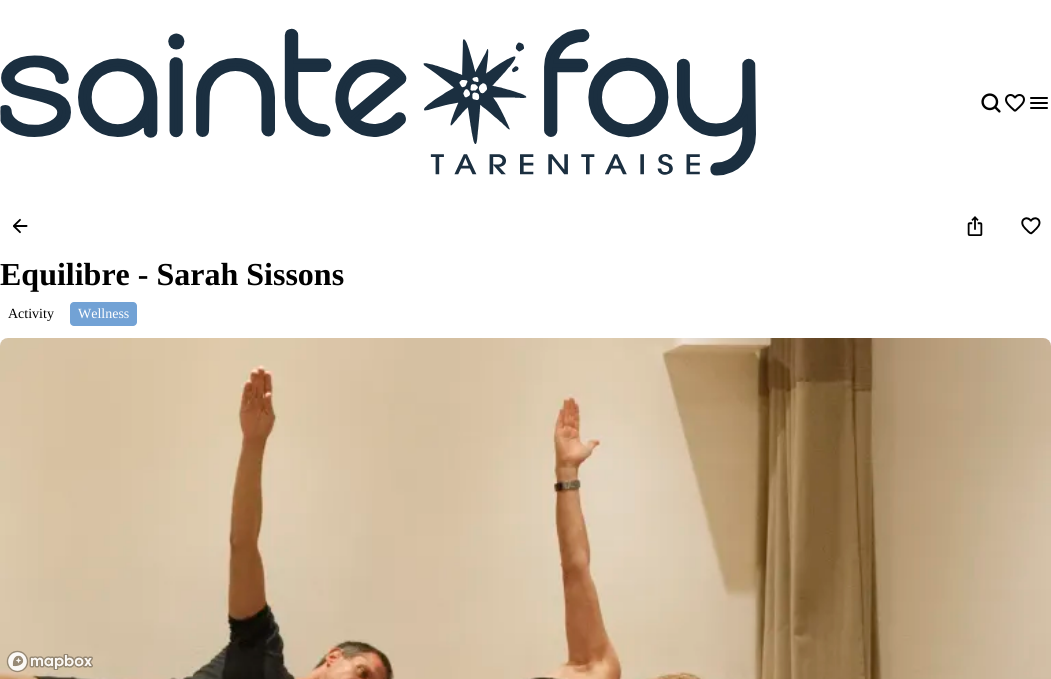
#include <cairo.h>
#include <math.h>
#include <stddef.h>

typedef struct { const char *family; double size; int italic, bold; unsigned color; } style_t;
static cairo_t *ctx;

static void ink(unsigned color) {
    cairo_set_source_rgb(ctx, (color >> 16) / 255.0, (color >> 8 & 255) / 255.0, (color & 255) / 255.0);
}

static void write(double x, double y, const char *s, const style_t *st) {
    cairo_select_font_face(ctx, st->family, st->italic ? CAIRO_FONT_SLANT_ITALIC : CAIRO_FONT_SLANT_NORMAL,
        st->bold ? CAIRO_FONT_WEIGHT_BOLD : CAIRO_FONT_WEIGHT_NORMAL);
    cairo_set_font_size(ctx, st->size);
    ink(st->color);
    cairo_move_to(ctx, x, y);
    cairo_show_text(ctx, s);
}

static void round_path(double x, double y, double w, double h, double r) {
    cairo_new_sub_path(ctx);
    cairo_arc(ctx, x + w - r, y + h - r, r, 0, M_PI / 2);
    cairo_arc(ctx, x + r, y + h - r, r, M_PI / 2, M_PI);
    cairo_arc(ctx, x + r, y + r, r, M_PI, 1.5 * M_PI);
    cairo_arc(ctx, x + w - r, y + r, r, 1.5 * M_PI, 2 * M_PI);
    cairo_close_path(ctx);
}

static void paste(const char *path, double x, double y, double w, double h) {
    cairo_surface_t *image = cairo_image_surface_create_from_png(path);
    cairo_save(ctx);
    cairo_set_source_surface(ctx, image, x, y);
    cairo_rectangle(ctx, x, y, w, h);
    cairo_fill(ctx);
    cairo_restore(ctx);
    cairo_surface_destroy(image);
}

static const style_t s1 = {"Liberation Serif", 32, 0, 1, 0x000000};
static const style_t s2 = {"Liberation Serif", 14, 0, 0, 0x000000};
static const style_t s3 = {"Liberation Serif", 14, 0, 0, 0xffffff};

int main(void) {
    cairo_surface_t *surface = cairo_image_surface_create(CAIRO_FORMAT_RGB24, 1051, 679);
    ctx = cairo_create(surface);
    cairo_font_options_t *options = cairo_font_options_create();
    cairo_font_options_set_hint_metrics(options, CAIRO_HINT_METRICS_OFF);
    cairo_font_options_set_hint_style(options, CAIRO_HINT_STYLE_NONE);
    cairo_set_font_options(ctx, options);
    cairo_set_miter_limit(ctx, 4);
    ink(0xffffff);
    cairo_paint(ctx);
    paste("pic1.png", 0, 28, 756, 148);
    paste("pic2.png", 981, 93, 20, 20);
    paste("pic3.png", 1005, 94, 20, 18);
    paste("pic4.png", 1030, 97, 18, 12);
    paste("pic5.png", 13, 218, 15, 16);
    paste("pic6.png", 967, 216, 16, 20);
    paste("pic7.png", 1021, 217, 20, 18);
    write(0, 285, "Equilibre - Sarah Sissons", &s1);
    write(8, 318, "Activity", &s2);
    ink(0x72a2d5);
    round_path(70, 302, 67, 24, 4);
    cairo_fill(ctx);
    write(78, 318, "Wellness", &s3);
    paste("pic8.png", 0, 338, 1051, 341);
    paste("pic9.png", 6, 650, 87, 23);
    cairo_surface_write_to_png(surface, "screenshot.png");
    cairo_font_options_destroy(options);
    cairo_destroy(ctx);
    cairo_surface_destroy(surface);
    return 0;
}
